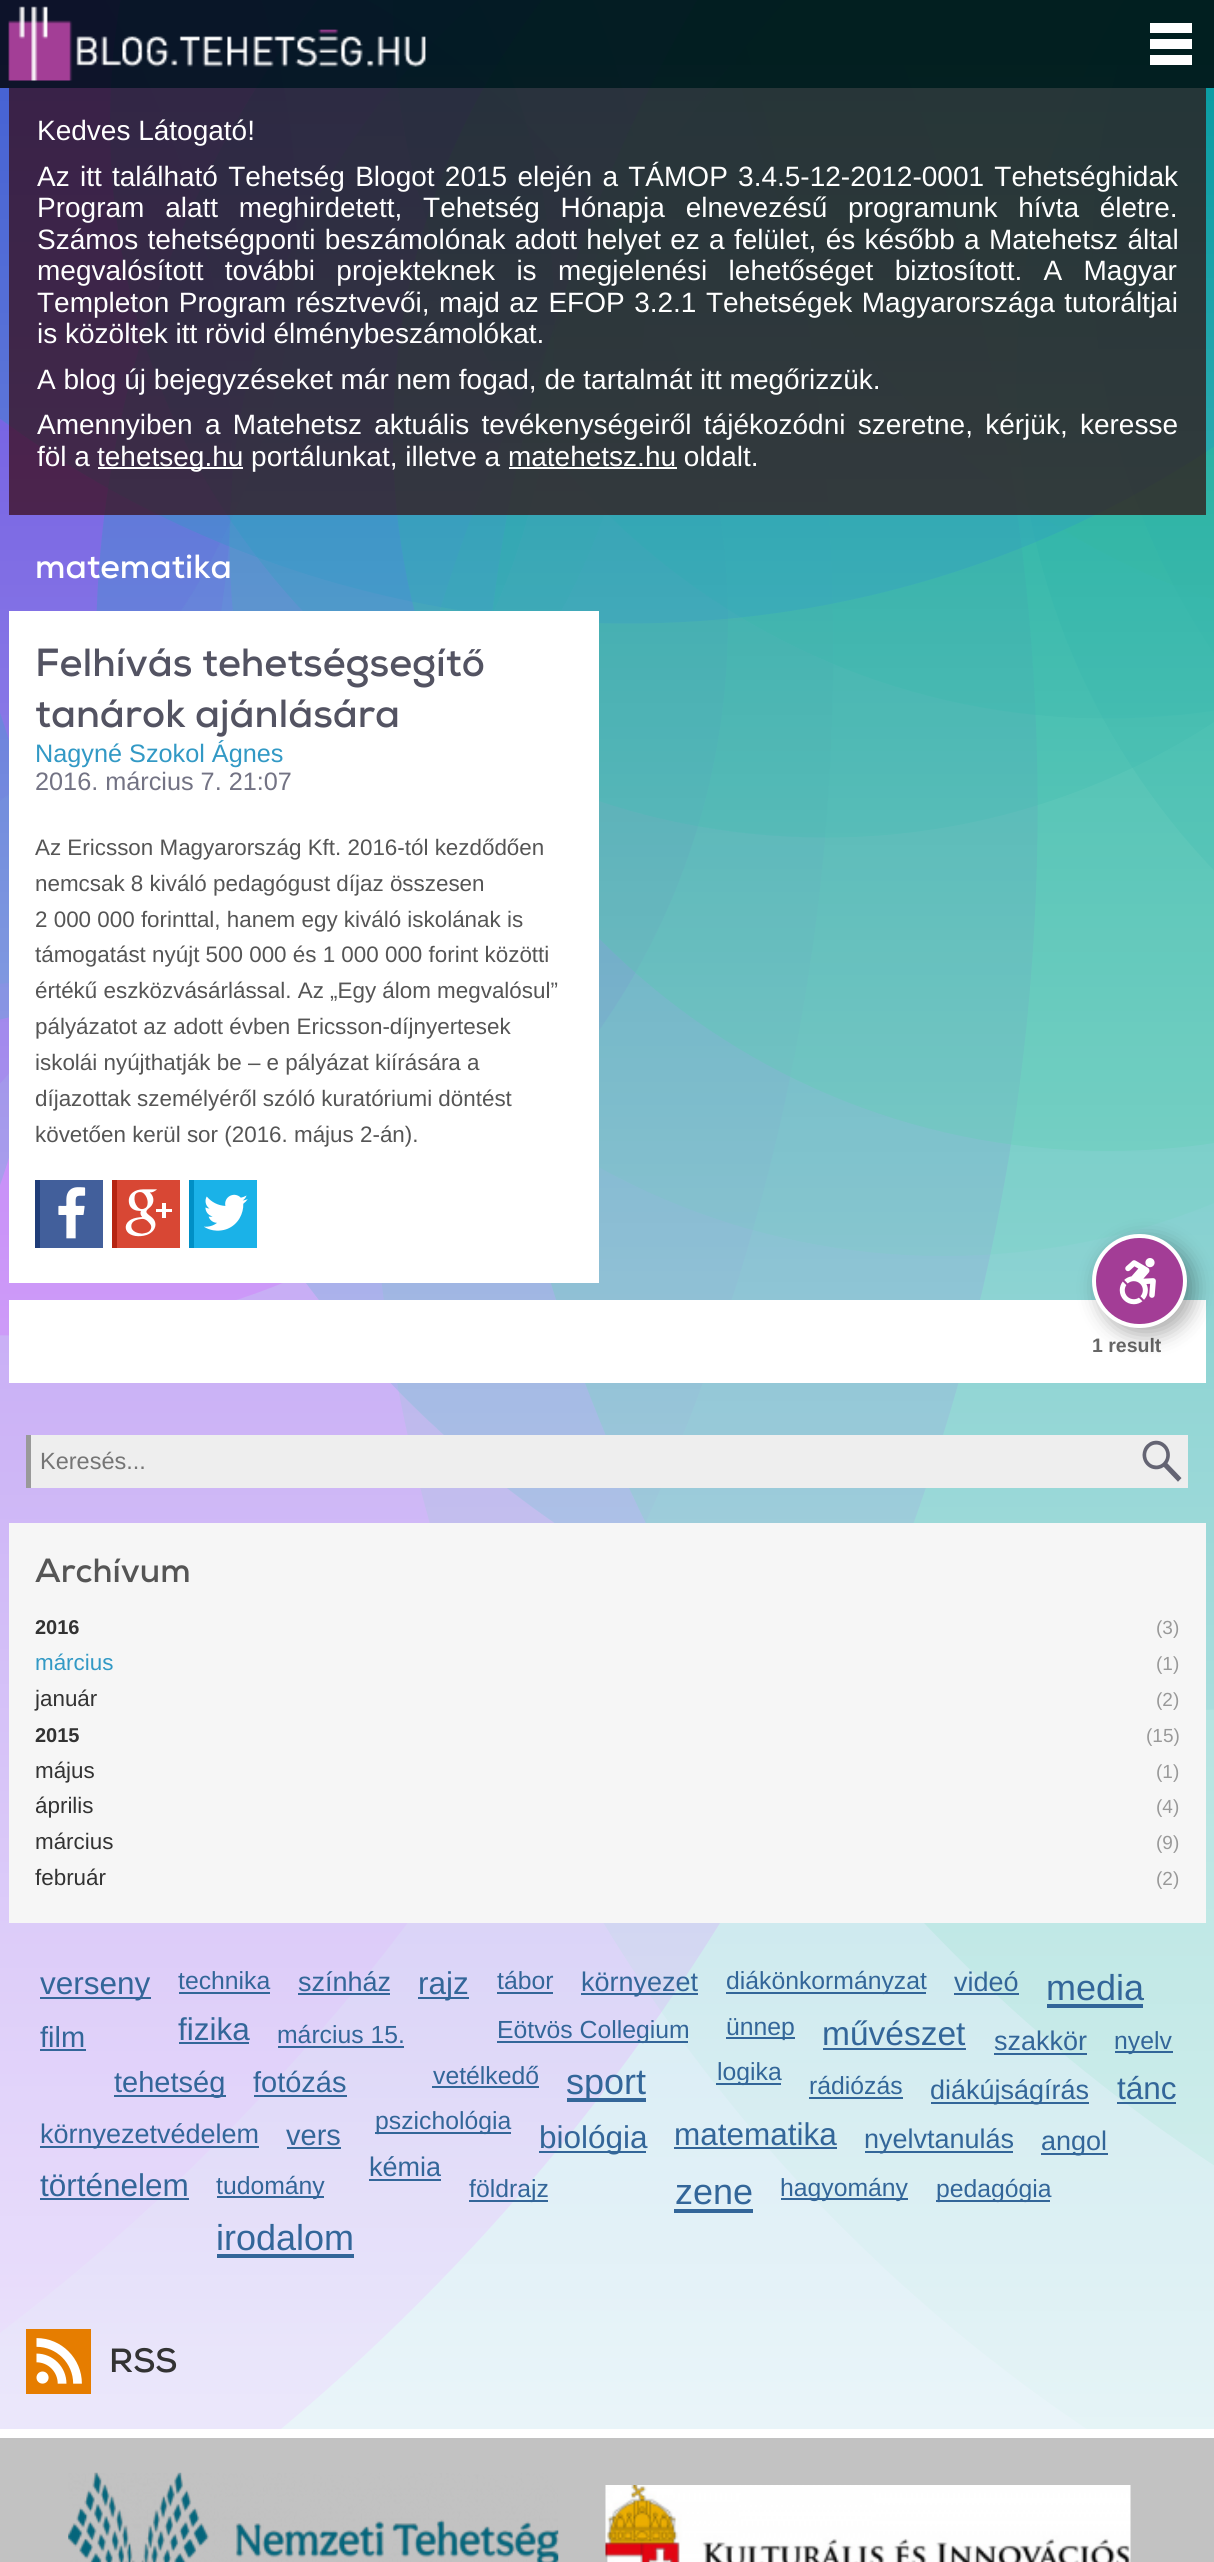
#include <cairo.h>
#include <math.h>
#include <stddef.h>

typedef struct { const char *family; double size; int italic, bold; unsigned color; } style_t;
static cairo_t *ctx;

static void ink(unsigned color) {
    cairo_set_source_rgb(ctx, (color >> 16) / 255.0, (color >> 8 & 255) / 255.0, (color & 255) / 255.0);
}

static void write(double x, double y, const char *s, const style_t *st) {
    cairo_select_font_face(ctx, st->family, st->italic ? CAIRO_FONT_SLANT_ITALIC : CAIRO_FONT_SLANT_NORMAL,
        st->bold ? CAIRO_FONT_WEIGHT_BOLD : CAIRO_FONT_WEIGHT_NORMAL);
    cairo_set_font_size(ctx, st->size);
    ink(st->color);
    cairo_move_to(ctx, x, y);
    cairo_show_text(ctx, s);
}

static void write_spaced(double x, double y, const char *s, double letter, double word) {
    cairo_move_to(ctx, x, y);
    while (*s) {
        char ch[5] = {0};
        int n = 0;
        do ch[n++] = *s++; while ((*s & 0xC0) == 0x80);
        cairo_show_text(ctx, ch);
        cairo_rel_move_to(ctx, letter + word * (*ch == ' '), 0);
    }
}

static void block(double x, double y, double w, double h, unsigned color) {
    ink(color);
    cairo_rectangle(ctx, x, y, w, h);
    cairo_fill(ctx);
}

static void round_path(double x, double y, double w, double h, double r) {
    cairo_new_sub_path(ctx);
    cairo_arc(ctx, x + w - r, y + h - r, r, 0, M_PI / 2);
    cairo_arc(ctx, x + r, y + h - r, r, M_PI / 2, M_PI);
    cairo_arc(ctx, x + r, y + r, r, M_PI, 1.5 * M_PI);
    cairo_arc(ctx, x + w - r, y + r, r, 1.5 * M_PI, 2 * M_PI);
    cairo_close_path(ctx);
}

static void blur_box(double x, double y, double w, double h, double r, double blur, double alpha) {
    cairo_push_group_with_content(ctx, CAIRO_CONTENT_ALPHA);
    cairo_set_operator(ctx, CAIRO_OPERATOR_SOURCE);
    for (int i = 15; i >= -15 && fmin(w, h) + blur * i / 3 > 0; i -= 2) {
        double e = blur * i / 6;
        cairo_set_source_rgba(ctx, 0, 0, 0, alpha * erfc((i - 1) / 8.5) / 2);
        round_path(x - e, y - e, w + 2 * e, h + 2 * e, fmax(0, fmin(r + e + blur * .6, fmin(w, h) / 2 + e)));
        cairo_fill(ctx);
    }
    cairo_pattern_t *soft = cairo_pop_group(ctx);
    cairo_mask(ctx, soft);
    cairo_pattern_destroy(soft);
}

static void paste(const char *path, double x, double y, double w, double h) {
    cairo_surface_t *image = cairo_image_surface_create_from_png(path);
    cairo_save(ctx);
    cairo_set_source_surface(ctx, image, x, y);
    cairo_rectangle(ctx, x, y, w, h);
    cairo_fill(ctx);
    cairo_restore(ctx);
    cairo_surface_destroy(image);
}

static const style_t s1 = {"Liberation Sans", 28, 0, 0, 0xffffff};
static const style_t s2 = {"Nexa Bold", 33.5, 0, 1, 0xffffff};
static const style_t s3 = {"Nexa Bold", 39.25, 0, 1, 0x535362};
static const style_t s4 = {"Liberation Sans", 25.25, 0, 0, 0x3299c5};
static const style_t s5 = {"Liberation Sans", 25.25, 0, 0, 0x737384};
static const style_t s6 = {"Liberation Sans", 22.4, 0, 0, 0x555555};
static const style_t s7 = {"Liberation Sans", 19.5, 0, 1, 0x666666};
static const style_t s8 = {"Liberation Sans", 23.5, 0, 0, 0x757575};
static const style_t s9 = {"Nexa Bold", 33.5, 0, 1, 0x555555};
static const style_t s10 = {"Liberation Sans", 20, 0, 1, 0x333333};
static const style_t s11 = {"Liberation Sans", 19, 0, 0, 0x999999};
static const style_t s12 = {"Liberation Sans", 22.4, 0, 0, 0x3299c5};
static const style_t s13 = {"Liberation Sans", 22.4, 0, 0, 0x333333};
static const style_t s14 = {"Liberation Sans", 31.5, 0, 0, 0x336699};
static const style_t s15 = {"Liberation Sans", 24.75, 0, 0, 0x336699};
static const style_t s16 = {"Liberation Sans", 27, 0, 0, 0x336699};
static const style_t s17 = {"Liberation Sans", 36, 0, 0, 0x336699};
static const style_t s18 = {"Liberation Sans", 29, 0, 0, 0x336699};
static const style_t s19 = {"Liberation Sans", 33.5, 0, 0, 0x336699};
static const style_t s20 = {"Nexa Bold", 33.5, 0, 1, 0x333333};

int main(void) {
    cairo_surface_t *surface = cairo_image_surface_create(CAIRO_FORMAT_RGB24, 1214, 2562);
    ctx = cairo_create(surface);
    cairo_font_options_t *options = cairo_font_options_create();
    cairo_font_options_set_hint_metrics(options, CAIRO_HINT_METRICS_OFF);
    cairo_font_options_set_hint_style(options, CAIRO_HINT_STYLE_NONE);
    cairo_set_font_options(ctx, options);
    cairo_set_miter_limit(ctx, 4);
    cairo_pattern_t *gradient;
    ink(0xffffff);
    cairo_paint(ctx);
    paste("pic1.png", 0, 0, 1214, 2429);
    gradient = cairo_pattern_create_linear(607, 0, 607, 2562);
    cairo_pattern_add_color_stop_rgba(gradient, 0, 1, 1, 1, 0);
    cairo_pattern_add_color_stop_rgba(gradient, 1, 1, 1, 1, 0.85);
    cairo_set_source(ctx, gradient);
    cairo_pattern_destroy(gradient);
    cairo_rectangle(ctx, 0, 65, 1214, 2364);
    cairo_fill(ctx);
    cairo_set_source_rgba(ctx, 0, 0, 0, 0.8);
    cairo_rectangle(ctx, 0, 0, 1214, 88);
    cairo_fill(ctx);
    paste("pic2.png", 8, 6, 418, 75);
    ink(0xffffff);
    cairo_new_path(ctx);
    cairo_move_to(ctx, 1150, 49);
    cairo_line_to(ctx, 1150, 39);
    cairo_line_to(ctx, 1192, 39);
    cairo_line_to(ctx, 1192, 49);
    cairo_close_path(ctx);
    cairo_move_to(ctx, 1150, 33);
    cairo_line_to(ctx, 1192, 33);
    cairo_line_to(ctx, 1192, 23);
    cairo_line_to(ctx, 1150, 23);
    cairo_close_path(ctx);
    cairo_move_to(ctx, 1192, 65);
    cairo_line_to(ctx, 1192, 55);
    cairo_line_to(ctx, 1150, 55);
    cairo_line_to(ctx, 1150, 65);
    cairo_close_path(ctx);
    cairo_fill(ctx);
    cairo_set_source_rgba(ctx, 0.196, 0, 0, 0.66);
    cairo_rectangle(ctx, 9, 88, 1197, 427);
    cairo_fill(ctx);
    write(37, 140, "Kedves Látogató!", &s1);
    write_spaced(37, 186, "Az itt található Tehetség Blogot 2015 elején a TÁMOP 3.4.5-12-2012-0001 Tehetséghidak", 0, 2.5);
    write_spaced(37, 217, "Program alatt meghirdetett, Tehetség Hónapja elnevezésű programunk hívta életre.", 0, 13);
    write_spaced(37, 249, "Számos tehetségponti beszámolónak adott helyet ez a felület, és később a Matehetsz által", 0, 1.5);
    write_spaced(37, 280, "megvalósított további projekteknek is megjelenési lehetőséget biztosított. A Magyar", 0, 13.5);
    write_spaced(37, 312, "Templeton Program résztvevői, majd az EFOP 3.2.1 Tehetségek Magyarországa tutoráltjai", 0, 1.75);
    write(37, 343, "is közöltek itt rövid élménybeszámolókat.", &s1);
    write(37, 389, "A blog új bejegyzéseket már nem fogad, de tartalmát itt megőrizzük.", &s1);
    write_spaced(37, 434, "Amennyiben a Matehetsz aktuális tevékenységeiről tájékozódni szeretne, kérjük, keresse", 0, 4.5);
    write(37, 466, "föl a", &s1);
    block(98, 467, 145, 2, 0xffffff);
    write(97, 466, "tehetseg.hu portálunkat, illetve a matehetsz.hu oldalt.", &s1);
    block(509, 467, 168, 2, 0xffffff);
    write(35, 578, "matematika", &s2);
    block(9, 611, 590, 672, 0xffffff);
    write(35, 676, "Felhívás tehetségsegítő", &s3);
    write(35, 727, "tanárok ajánlására", &s3);
    write(35, 762, "Nagyné Szokol Ágnes", &s4);
    write(35, 790, "2016. március 7. 21:07", &s5);
    write(35, 855, "Az Ericsson Magyarország Kft. 2016-tól kezdődően", &s6);
    write(35, 891, "nemcsak 8 kiváló pedagógust díjaz összesen", &s6);
    write(35, 927, "2 000 000 forinttal, hanem egy kiváló iskolának is", &s6);
    write(35, 962, "támogatást nyújt 500 000 és 1 000 000 forint közötti", &s6);
    write(35, 998, "értékű eszközvásárlással. Az „Egy álom megvalósul”", &s6);
    write(35, 1034, "pályázatot az adott évben Ericsson-díjnyertesek", &s6);
    write(35, 1070, "iskolái nyújthatják be – e pályázat kiírására a", &s6);
    write(35, 1106, "díjazottak személyéről szóló kuratóriumi döntést", &s6);
    write(35, 1142, "követően kerül sor (2016. május 2-án).", &s6);
    block(40, 1180, 63, 68, 0x425f9b);
    paste("pic3.png", 58, 1187, 28, 52);
    block(35, 1180, 5, 68, 0x203d79);
    block(117, 1180, 63, 68, 0xd84734);
    paste("pic4.png", 125, 1189, 47, 48);
    block(112, 1180, 5, 68, 0xb62512);
    block(194, 1180, 63, 68, 0x1ab2e8);
    paste("pic5.png", 204, 1194, 44, 37);
    block(189, 1180, 5, 68, 0x0090c6);
    block(9, 1300, 1197, 83, 0xffffff);
    write(1092, 1352, "1 result", &s7);
    block(31, 1435, 1157, 53, 0xeeeeee);
    block(26, 1435, 5, 53, 0x999999);
    write(40, 1469, "Keresés...", &s8);
    paste("pic6.png", 1142, 1440, 40, 42);
    block(9, 1523, 1197, 400, 0xf6f6f6);
    write(35, 1582, "Archívum", &s9);
    write(35, 1634, "2016", &s10);
    write(1156, 1634, "(3)", &s11);
    write(35, 1670, "március", &s12);
    write(1156, 1670, "(1)", &s11);
    write(35, 1706, "január", &s13);
    write(1156, 1706, "(2)", &s11);
    write(35, 1742, "2015", &s10);
    write(1146, 1742, "(15)", &s11);
    write(35, 1778, "május", &s13);
    write(1156, 1778, "(1)", &s11);
    write(35, 1813, "április", &s13);
    write(1156, 1813, "(4)", &s11);
    write(35, 1849, "március", &s13);
    write(1156, 1849, "(9)", &s11);
    write(35, 1885, "február", &s13);
    write(1156, 1885, "(2)", &s11);
    block(40, 1997, 111, 2, 0x336699);
    write(40, 1994, "verseny", &s14);
    write(178, 1989, "technika", &s15);
    block(179, 1992, 91, 2, 0x336699);
    write(298, 1991, "színház", &s16);
    block(298, 1993, 92, 2, 0x336699);
    block(418, 1997, 51, 2, 0x336699);
    write(418, 1994, "rajz", &s14);
    write(497, 1989, "tábor", &s15);
    block(497, 1992, 56, 2, 0x336699);
    block(581, 1993, 117, 2, 0x336699);
    write(581, 1991, "környezet", &s16);
    block(726, 1992, 200, 2, 0x336699);
    write(726, 1989, "diákönkormányzat", &s15);
    write(954, 1991, "videó", &s16);
    block(954, 1993, 65, 2, 0x336699);
    write(1046, 2000, "media", &s17);
    block(1047, 2004, 96, 4, 0x336699);
    write(40, 2047, "film", &s18);
    block(40, 2049, 46, 2, 0x336699);
    write(178, 2040, "fizika", &s14);
    block(179, 2042, 70, 2, 0x336699);
    write(277, 2043, "március 15.", &s15);
    block(278, 2046, 126, 2, 0x336699);
    block(497, 2041, 191, 2, 0x336699);
    write(497, 2038, "Eötvös Collegium", &s15);
    block(726, 2037, 69, 2, 0x336699);
    write(726, 2035, "ünnep", &s15);
    write(822, 2045, "művészet", &s19);
    block(823, 2048, 143, 2, 0x336699);
    write(994, 2050, "szakkör", &s16);
    block(994, 2053, 93, 2, 0x336699);
    block(1115, 2051, 58, 2, 0x336699);
    write(1114, 2049, "nyelv", &s15);
    block(114, 2095, 112, 2, 0x336699);
    write(114, 2092, "tehetség", &s18);
    write(253, 2092, "fotózás", &s18);
    block(254, 2095, 93, 2, 0x336699);
    write(433, 2084, "vetélkedő", &s15);
    block(432, 2086, 107, 2, 0x336699);
    block(567, 2098, 79, 4, 0x336699);
    write(566, 2094, "sport", &s17);
    block(716, 2083, 65, 2, 0x336699);
    write(717, 2080, "logika", &s15);
    write(809, 2094, "rádiózás", &s15);
    block(809, 2097, 94, 2, 0x336699);
    block(931, 2102, 158, 2, 0x336699);
    write(930, 2099, "diákújságírás", &s16);
    write(1117, 2099, "tánc", &s14);
    block(1117, 2102, 59, 2, 0x336699);
    block(40, 2146, 219, 2, 0x336699);
    write(40, 2143, "környezetvédelem", &s16);
    write(286, 2145, "vers", &s18);
    block(287, 2147, 54, 2, 0x336699);
    block(375, 2132, 136, 2, 0x336699);
    write(375, 2129, "pszichológia", &s15);
    block(539, 2151, 107, 2, 0x336699);
    write(539, 2148, "biológia", &s14);
    write(674, 2145, "matematika", &s14);
    block(674, 2147, 163, 2, 0x336699);
    block(865, 2151, 148, 2, 0x336699);
    write(864, 2148, "nyelvtanulás", &s16);
    block(1041, 2153, 67, 2, 0x336699);
    write(1041, 2150, "angol", &s16);
    write(369, 2176, "kémia", &s16);
    block(369, 2179, 72, 2, 0x336699);
    write(40, 2196, "történelem", &s14);
    block(40, 2198, 149, 2, 0x336699);
    block(217, 2196, 107, 2, 0x336699);
    write(216, 2194, "tudomány", &s15);
    block(469, 2200, 79, 2, 0x336699);
    write(469, 2197, "földrajz", &s15);
    write(675, 2204, "zene", &s17);
    block(674, 2209, 79, 4, 0x336699);
    block(781, 2198, 127, 2, 0x336699);
    write(780, 2196, "hagyomány", &s15);
    block(936, 2200, 114, 2, 0x336699);
    write(936, 2197, "pedagógia", &s15);
    write(216, 2250, "irodalom", &s17);
    block(217, 2254, 137, 4, 0x336699);
    block(26, 2329, 65, 65, 0xe67d00);
    paste("pic7.png", 36, 2338, 46, 46);
    write(109, 2372, "RSS", &s20);
    ink(0x000000);
    blur_box(1099, 1241, 95, 94, 47, 10.5, 0.33);
    ink(0xa33d96);
    round_path(1094, 1236, 91, 90, 45);
    cairo_fill_preserve(ctx);
    ink(0xffffff);
    cairo_set_line_width(ctx, 4);
    cairo_stroke(ctx);
    paste("pic8.png", 1119, 1258, 37, 47);
    block(0, 2438, 1214, 124, 0xc2c2c2);
    paste("pic9.png", 68, 2472, 491, 90);
    paste("pic10.png", 605, 2485, 526, 77);
    cairo_surface_write_to_png(surface, "screenshot.png");
    cairo_font_options_destroy(options);
    cairo_destroy(ctx);
    cairo_surface_destroy(surface);
    return 0;
}
